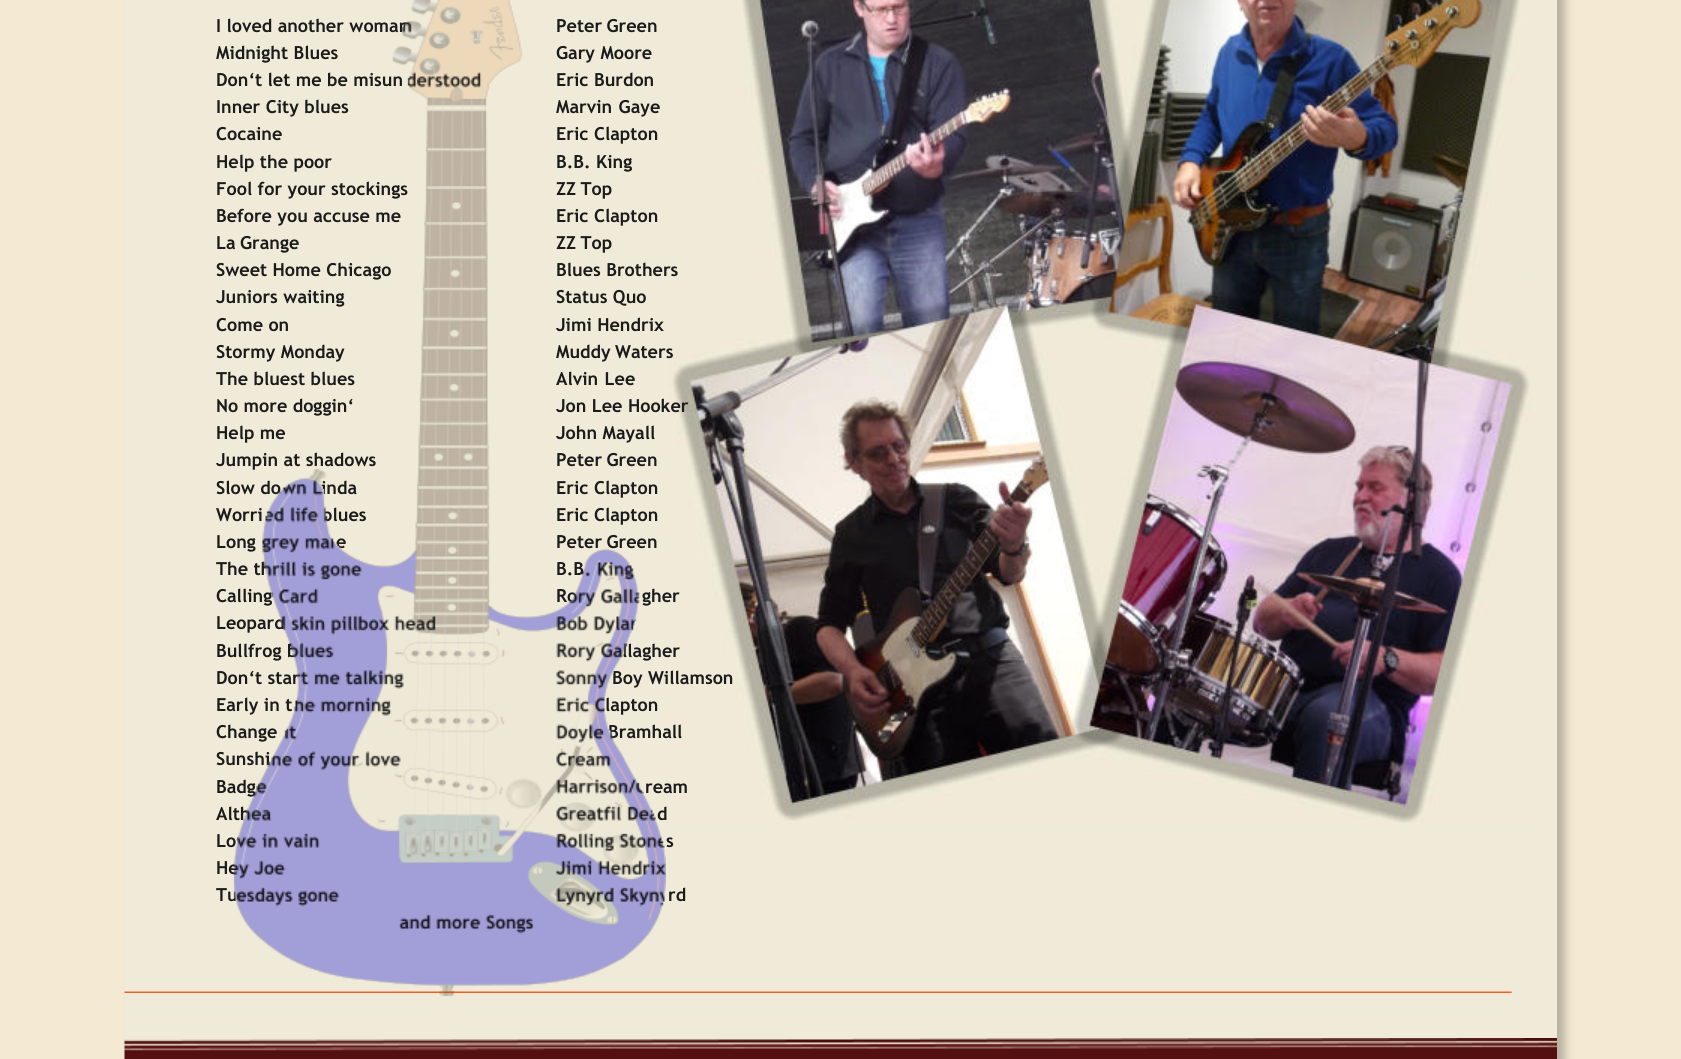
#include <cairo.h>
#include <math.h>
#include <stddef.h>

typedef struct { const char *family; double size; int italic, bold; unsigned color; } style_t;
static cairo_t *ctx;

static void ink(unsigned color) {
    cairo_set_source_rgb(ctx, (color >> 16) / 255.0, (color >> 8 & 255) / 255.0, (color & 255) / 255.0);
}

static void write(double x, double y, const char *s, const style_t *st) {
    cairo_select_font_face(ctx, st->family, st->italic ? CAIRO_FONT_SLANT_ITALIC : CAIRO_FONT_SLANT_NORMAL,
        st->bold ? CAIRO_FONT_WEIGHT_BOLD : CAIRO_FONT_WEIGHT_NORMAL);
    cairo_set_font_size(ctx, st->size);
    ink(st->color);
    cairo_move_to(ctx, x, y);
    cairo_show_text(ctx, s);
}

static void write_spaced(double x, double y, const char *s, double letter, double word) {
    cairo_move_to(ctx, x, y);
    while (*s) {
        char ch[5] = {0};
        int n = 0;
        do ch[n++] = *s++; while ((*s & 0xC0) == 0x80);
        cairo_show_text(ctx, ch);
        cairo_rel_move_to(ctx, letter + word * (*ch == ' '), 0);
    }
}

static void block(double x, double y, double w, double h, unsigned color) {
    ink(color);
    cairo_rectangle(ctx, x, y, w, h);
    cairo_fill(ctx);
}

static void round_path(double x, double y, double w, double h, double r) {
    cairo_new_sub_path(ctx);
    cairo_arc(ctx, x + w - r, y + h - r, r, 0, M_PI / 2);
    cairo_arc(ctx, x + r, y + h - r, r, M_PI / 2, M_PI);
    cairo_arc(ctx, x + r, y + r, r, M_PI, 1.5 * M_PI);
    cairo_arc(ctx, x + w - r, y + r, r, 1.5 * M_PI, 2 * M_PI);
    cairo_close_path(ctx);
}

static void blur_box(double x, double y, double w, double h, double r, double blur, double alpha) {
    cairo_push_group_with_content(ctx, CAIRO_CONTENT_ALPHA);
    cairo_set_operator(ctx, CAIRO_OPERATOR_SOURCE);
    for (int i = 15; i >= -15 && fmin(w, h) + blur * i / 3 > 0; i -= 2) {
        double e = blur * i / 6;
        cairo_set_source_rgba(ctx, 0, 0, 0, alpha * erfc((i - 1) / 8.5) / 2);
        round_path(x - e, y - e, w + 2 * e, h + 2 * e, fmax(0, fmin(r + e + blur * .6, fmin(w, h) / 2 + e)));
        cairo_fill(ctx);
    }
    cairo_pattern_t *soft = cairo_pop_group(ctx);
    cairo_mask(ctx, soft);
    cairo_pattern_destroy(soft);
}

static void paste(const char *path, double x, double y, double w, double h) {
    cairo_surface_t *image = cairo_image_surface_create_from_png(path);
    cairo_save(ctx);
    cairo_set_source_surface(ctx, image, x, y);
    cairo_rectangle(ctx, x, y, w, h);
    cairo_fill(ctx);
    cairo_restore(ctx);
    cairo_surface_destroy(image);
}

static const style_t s1 = {"Trebuchet MS", 18, 0, 1, 0x1b1b1b};

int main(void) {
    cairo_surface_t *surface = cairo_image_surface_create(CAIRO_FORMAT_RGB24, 1681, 1059);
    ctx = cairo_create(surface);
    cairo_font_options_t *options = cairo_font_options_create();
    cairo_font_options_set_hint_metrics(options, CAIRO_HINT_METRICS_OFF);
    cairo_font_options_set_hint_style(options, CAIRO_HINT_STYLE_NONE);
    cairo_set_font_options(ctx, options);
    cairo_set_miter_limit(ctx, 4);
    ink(0xf4ead4);
    cairo_paint(ctx);
    ink(0x000000);
    blur_box(132, -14, 1433, 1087, 0, 4.5, 0.25);
    block(125, 0, 1432, 1051, 0xf0ebd8);
    write(216, 32, "I loved another woman", &s1);
    write_spaced(556, 32, "Peter Green", 0, -1);
    write(216, 59, "Midnight Blues", &s1);
    write(556, 59, "Gary Moore", &s1);
    write(216, 86, "Don‘t let me be misun", &s1);
    write(556, 86, "Eric Burdon", &s1);
    write(216, 113, "Inner City blues", &s1);
    write_spaced(556, 113, "Marvin Gaye", 0, 1);
    write(216, 140, "Cocaine", &s1);
    write(556, 140, "Eric Clapton", &s1);
    write(216, 168, "Help the poor", &s1);
    write(556, 168, "B.B. King", &s1);
    write(216, 195, "Fool for your stockings", &s1);
    write_spaced(556, 195, "ZZ Top", 0, -1);
    write(216, 222, "Before you accuse me", &s1);
    write(556, 222, "Eric Clapton", &s1);
    write_spaced(216, 249, "La Grange", 0, -1);
    write_spaced(556, 249, "ZZ Top", 0, -1);
    write(216, 276, "Sweet Home Chicago", &s1);
    write(556, 276, "Blues Brothers", &s1);
    write(216, 303, "Juniors waiting", &s1);
    write(556, 303, "Status Quo", &s1);
    write(216, 331, "Come on", &s1);
    write(556, 331, "Jimi Hendrix", &s1);
    write(216, 358, "Stormy Monday", &s1);
    paste("pic4.png", 669, 279, 395, 542);
    write_spaced(556, 358, "Muddy Waters", 0, -1);
    write(216, 385, "The bluest blues", &s1);
    write_spaced(556, 385, "Alvin Lee", 0, 1);
    write(216, 412, "No more doggin‘", &s1);
    write(556, 412, "Jon Lee Hooker", &s1);
    write(216, 439, "Help me", &s1);
    write(556, 439, "John Mayall", &s1);
    write(216, 466, "Jumpin at shadows", &s1);
    write_spaced(556, 466, "Peter Green", 0, -1);
    write(216, 494, "Slow do", &s1);
    write(321, 494, "inda", &s1);
    write(556, 494, "Eric Clapton", &s1);
    write(216, 521, "Worri", &s1);
    write(322, 521, "blues", &s1);
    write(556, 521, "Eric Clapton", &s1);
    write(216, 548, "Long", &s1);
    write(336, 548, "e", &s1);
    write_spaced(556, 548, "Peter Green", 0, -1);
    write(216, 575, "The th", &s1);
    write(556, 575, "B.B", &s1);
    write(216, 602, "Calling", &s1);
    write(556, 602, "Ro", &s1);
    write(642, 602, "gher", &s1);
    write(216, 629, "Leopard", &s1);
    write(216, 657, "Bullfrog b", &s1);
    write(622, 657, "llagher", &s1);
    write(216, 684, "Don‘t star", &s1);
    write(612, 684, "Boy Willamson", &s1);
    write(216, 711, "Early in t", &s1);
    write(605, 711, "lapton", &s1);
    write(216, 738, "Change", &s1);
    write_spaced(608, 738, "Bramhall", 0, -1);
    write(216, 765, "Sunshi", &s1);
    write(216, 793, "Badg", &s1);
    write(645, 793, "ream", &s1);
    write(216, 820, "Alth", &s1);
    write(657, 820, "d", &s1);
    write(216, 847, "Lo", &s1);
    write(216, 874, "He", &s1);
    write_spaced(216, 901, "Tu", 0, -1);
    paste("pic6.png", 124, 991, 1388, 2);
    paste("pic1.png", 233, 0, 433, 997);
    paste("pic2.png", 741, 0, 342, 279);
    paste("pic3.png", 1083, 0, 438, 279);
    write(666, 847, "s", &s1);
    write_spaced(668, 901, "rd", 0, -1);
    paste("pic5.png", 1063, 279, 468, 545);
    paste("pic7.png", 124, 1038, 1433, 21);
    cairo_surface_write_to_png(surface, "screenshot.png");
    cairo_font_options_destroy(options);
    cairo_destroy(ctx);
    cairo_surface_destroy(surface);
    return 0;
}
